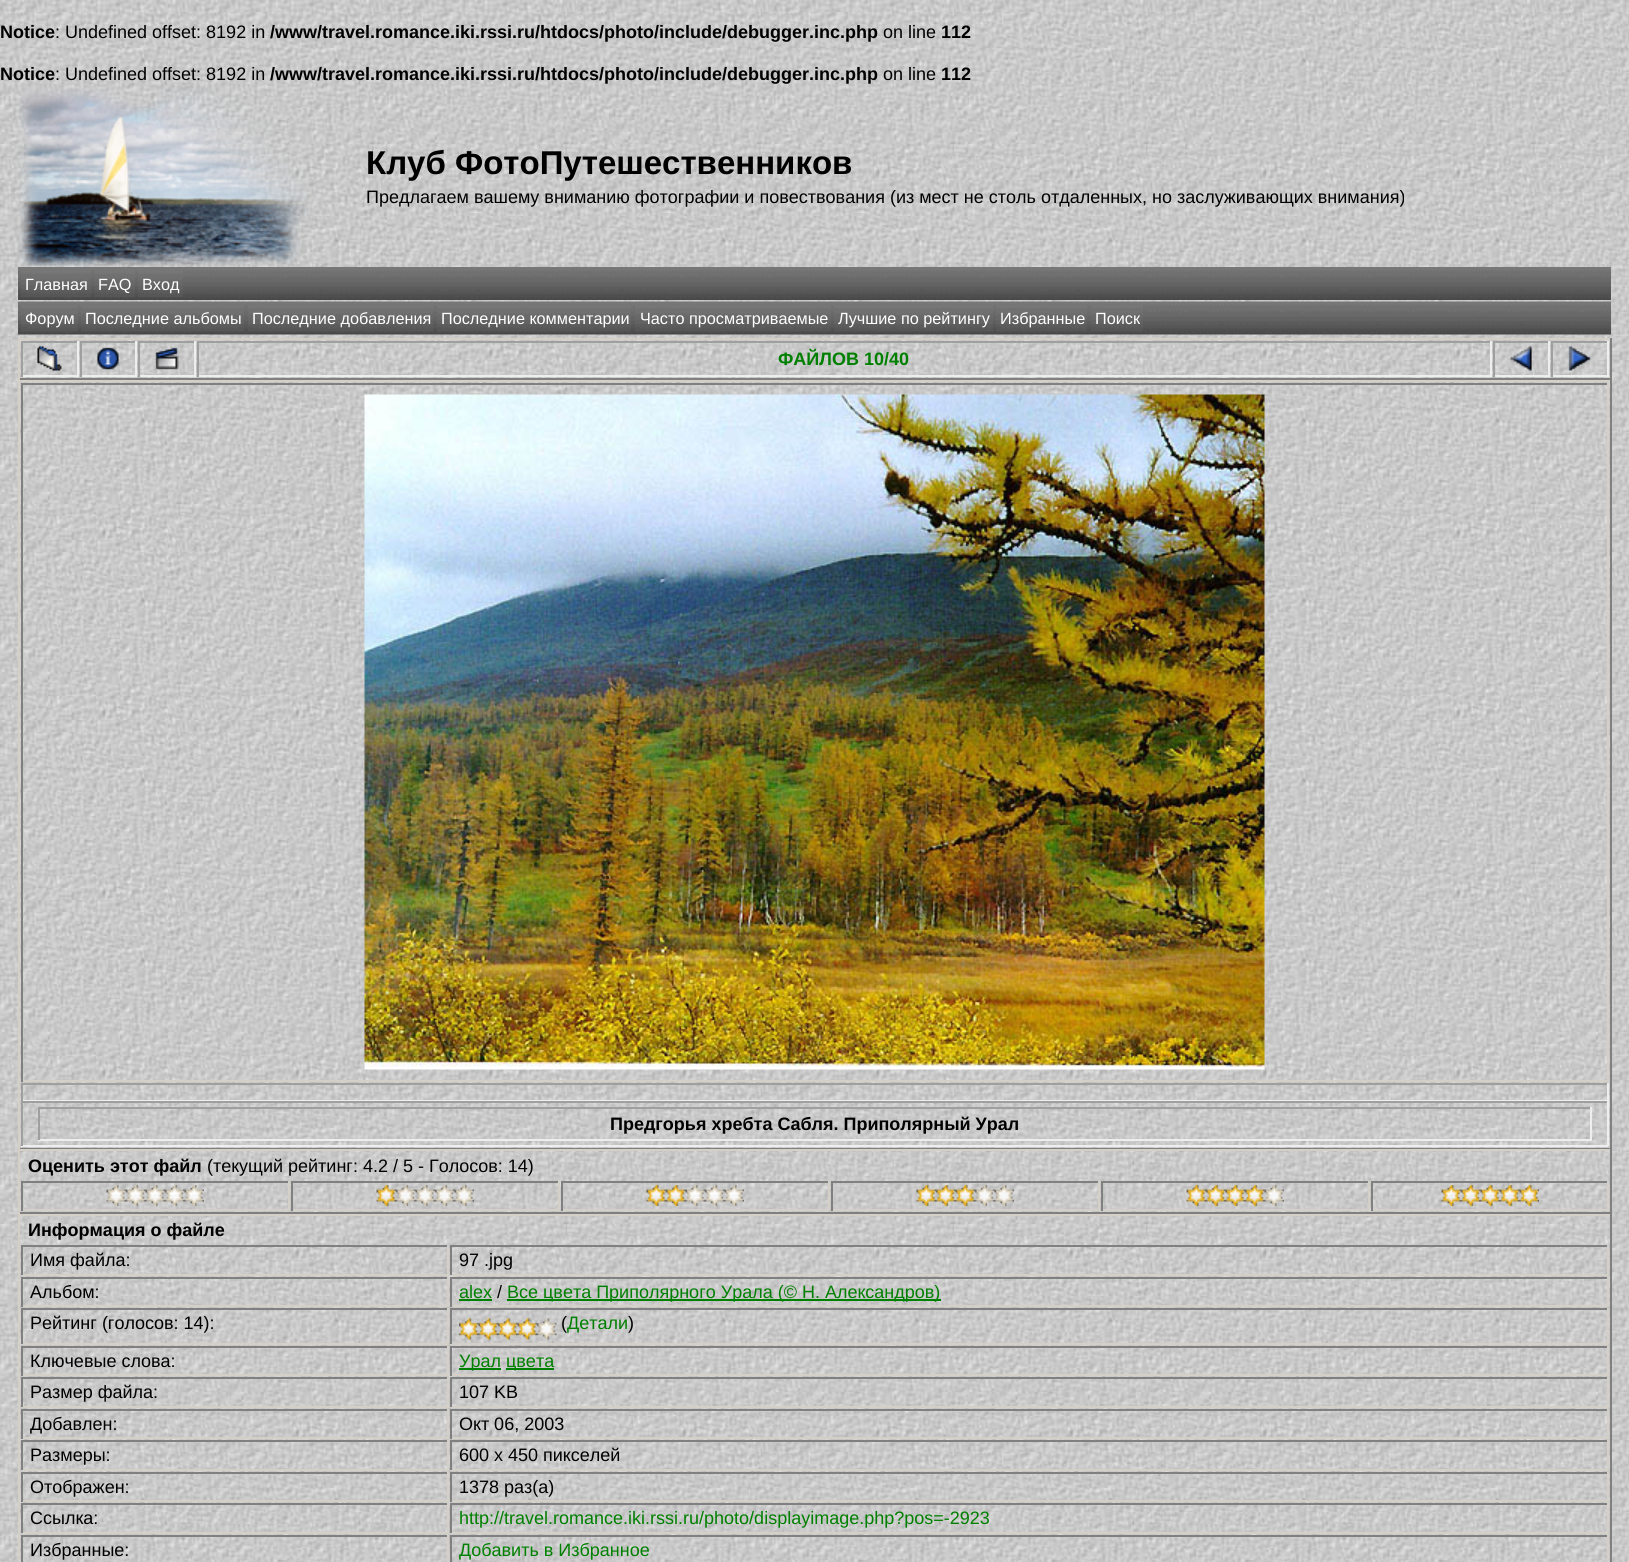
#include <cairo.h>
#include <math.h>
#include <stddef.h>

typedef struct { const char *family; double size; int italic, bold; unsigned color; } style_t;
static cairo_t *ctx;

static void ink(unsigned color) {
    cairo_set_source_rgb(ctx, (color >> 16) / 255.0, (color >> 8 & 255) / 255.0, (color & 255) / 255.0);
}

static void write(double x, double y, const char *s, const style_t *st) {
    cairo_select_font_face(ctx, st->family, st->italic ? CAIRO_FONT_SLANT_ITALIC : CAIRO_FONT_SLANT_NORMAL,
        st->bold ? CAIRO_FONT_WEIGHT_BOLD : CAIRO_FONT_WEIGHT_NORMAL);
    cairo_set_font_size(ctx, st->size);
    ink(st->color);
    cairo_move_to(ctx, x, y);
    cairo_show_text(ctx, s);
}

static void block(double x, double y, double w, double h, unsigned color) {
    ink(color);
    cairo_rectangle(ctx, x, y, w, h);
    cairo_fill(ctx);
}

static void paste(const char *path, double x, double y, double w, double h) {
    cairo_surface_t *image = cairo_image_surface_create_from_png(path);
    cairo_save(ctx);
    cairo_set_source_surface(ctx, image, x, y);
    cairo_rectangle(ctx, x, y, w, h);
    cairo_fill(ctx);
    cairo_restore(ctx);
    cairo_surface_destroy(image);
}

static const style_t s1 = {"Liberation Sans", 18, 0, 1, 0x000000};
static const style_t s2 = {"Liberation Sans", 18, 0, 0, 0x000000};
static const style_t s3 = {"Liberation Sans", 33, 0, 1, 0x000000};
static const style_t s4 = {"Liberation Sans", 16.25, 0, 0, 0xffffff};
static const style_t s5 = {"Liberation Sans", 18, 0, 1, 0x008000};
static const style_t s6 = {"Liberation Sans", 18, 0, 0, 0x008000};

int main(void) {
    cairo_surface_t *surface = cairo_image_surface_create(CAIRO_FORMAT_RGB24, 1629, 1562);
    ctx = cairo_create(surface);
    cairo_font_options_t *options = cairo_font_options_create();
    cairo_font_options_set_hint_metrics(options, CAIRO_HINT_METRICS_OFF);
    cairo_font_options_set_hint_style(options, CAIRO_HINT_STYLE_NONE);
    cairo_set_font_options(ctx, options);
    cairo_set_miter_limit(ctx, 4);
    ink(0xffffff);
    cairo_paint(ctx);
    paste("pic1.png", 0, 0, 1629, 1562);
    write(0, 38, "Notice", &s1);
    write(55, 38, ": Undefined offset: 8192 in", &s2);
    write(270, 38, "/www/travel.romance.iki.rssi.ru/htdocs/photo/include/debugger.inc.php", &s1);
    write(883, 38, "on line", &s2);
    write(941, 38, "112", &s1);
    write(0, 80, "Notice", &s1);
    write(55, 80, ": Undefined offset: 8192 in", &s2);
    write(270, 80, "/www/travel.romance.iki.rssi.ru/htdocs/photo/include/debugger.inc.php", &s1);
    write(883, 80, "on line", &s2);
    write(941, 80, "112", &s1);
    paste("pic2.png", 18, 86, 290, 180);
    write(366, 174, "Клуб ФотоПутешественников", &s3);
    write(366, 203, "Предлагаем вашему вниманию фотографии и повествования (из мест не столь отдаленных, но заслуживающих внимания)", &s2);
    paste("pic3.png", 18, 267, 1593, 33);
    paste("pic4.png", 21, 270, 71, 27);
    write(25, 290, "Главная", &s4);
    paste("pic5.png", 94, 270, 41, 27);
    write(98, 290, "FAQ", &s4);
    paste("pic6.png", 138, 270, 45, 27);
    write(142, 290, "Вход", &s4);
    paste("pic7.png", 18, 301, 1593, 34);
    paste("pic8.png", 21, 305, 57, 27);
    write(25, 324, "Форум", &s4);
    paste("pic9.png", 81, 305, 163, 27);
    write(85, 324, "Последние альбомы", &s4);
    paste("pic10.png", 248, 305, 185, 27);
    write(252, 324, "Последние добавления", &s4);
    paste("pic11.png", 437, 305, 194, 27);
    write(441, 324, "Последние комментарии", &s4);
    paste("pic12.png", 635, 305, 196, 27);
    write(640, 324, "Часто просматриваемые", &s4);
    paste("pic13.png", 834, 305, 159, 27);
    write(838, 324, "Лучшие по рейтингу", &s4);
    paste("pic14.png", 996, 305, 91, 27);
    write(1000, 324, "Избранные", &s4);
    paste("pic15.png", 1091, 305, 52, 27);
    write(1095, 324, "Поиск", &s4);
    block(18, 338, 1593, 2, 0xd4d0c8);
    block(1610, 338, 2, 42, 0x808080);
    block(18, 378, 1593, 2, 0x808080);
    block(18, 338, 2, 42, 0xd4d0c8);
    block(21, 341, 57, 2, 0x9f9f9f);
    block(77, 341, 2, 36, 0xeeeeee);
    block(21, 375, 57, 2, 0xeeeeee);
    block(21, 341, 2, 36, 0x9f9f9f);
    paste("pic16.png", 37, 346, 25, 25);
    block(80, 341, 57, 2, 0x9f9f9f);
    block(135, 341, 2, 36, 0xeeeeee);
    block(80, 375, 57, 2, 0xeeeeee);
    block(80, 341, 2, 36, 0x9f9f9f);
    paste("pic17.png", 97, 347, 22, 23);
    block(138, 341, 57, 2, 0x9f9f9f);
    block(194, 341, 2, 36, 0xeeeeee);
    block(138, 375, 57, 2, 0xeeeeee);
    block(138, 341, 2, 36, 0x9f9f9f);
    paste("pic18.png", 155, 347, 24, 23);
    block(197, 341, 1294, 2, 0x9f9f9f);
    block(1490, 341, 2, 36, 0xeeeeee);
    block(197, 375, 1294, 2, 0xeeeeee);
    block(197, 341, 2, 36, 0x9f9f9f);
    write(778, 365, "ФАЙЛОВ 10/40", &s5);
    block(1493, 341, 57, 2, 0x9f9f9f);
    block(1548, 341, 2, 36, 0xeeeeee);
    block(1493, 375, 57, 2, 0xeeeeee);
    block(1493, 341, 2, 36, 0x9f9f9f);
    paste("pic19.png", 1510, 346, 22, 25);
    block(1551, 341, 57, 2, 0x9f9f9f);
    block(1607, 341, 2, 36, 0xeeeeee);
    block(1551, 375, 57, 2, 0xeeeeee);
    block(1551, 341, 2, 36, 0x9f9f9f);
    paste("pic20.png", 1568, 346, 23, 25);
    block(18, 380, 1593, 2, 0xd4d0c8);
    block(1610, 380, 2, 769, 0x808080);
    block(18, 1148, 1593, 1, 0x808080);
    block(18, 380, 2, 769, 0xd4d0c8);
    block(21, 383, 1587, 2, 0x808080);
    block(1607, 383, 2, 699, 0xd4d0c8);
    block(21, 1080, 1587, 2, 0xd4d0c8);
    block(21, 383, 2, 699, 0x808080);
    paste("pic21.png", 364, 394, 901, 676);
    block(21, 1083, 1587, 2, 0x9f9f9f);
    block(1607, 1083, 2, 18, 0xeeeeee);
    block(21, 1100, 1587, 1, 0xeeeeee);
    block(21, 1083, 2, 18, 0x9f9f9f);
    block(21, 1101, 1587, 2, 0x9f9f9f);
    block(1607, 1101, 2, 45, 0xeeeeee);
    block(21, 1145, 1587, 2, 0xeeeeee);
    block(21, 1101, 2, 45, 0x9f9f9f);
    block(38, 1107, 1554, 2, 0x9f9f9f);
    block(1590, 1107, 2, 33, 0xeeeeee);
    block(38, 1139, 1554, 2, 0xeeeeee);
    block(38, 1107, 2, 33, 0x9f9f9f);
    write(610, 1130, "Предгорья хребта Сабля. Приполярный Урал", &s1);
    block(18, 1149, 1593, 2, 0xd4d0c8);
    block(1610, 1149, 2, 65, 0x808080);
    block(18, 1212, 1593, 2, 0x808080);
    block(18, 1149, 2, 65, 0xd4d0c8);
    write(28, 1172, "Оценить этот файл", &s1);
    write(207, 1172, "(текущий рейтинг: 4.2 / 5 - Голосов: 14)", &s2);
    block(21, 1181, 269, 2, 0x808080);
    block(288, 1181, 2, 30, 0xd4d0c8);
    block(21, 1209, 269, 2, 0xd4d0c8);
    block(21, 1181, 2, 30, 0x808080);
    paste("pic22.png", 106, 1185, 98, 21);
    block(291, 1181, 269, 2, 0x808080);
    block(558, 1181, 2, 30, 0xd4d0c8);
    block(291, 1209, 269, 2, 0xd4d0c8);
    block(291, 1181, 2, 30, 0x808080);
    paste("pic23.png", 376, 1185, 98, 21);
    block(561, 1181, 269, 2, 0x808080);
    block(828, 1181, 2, 30, 0xd4d0c8);
    block(561, 1209, 269, 2, 0xd4d0c8);
    block(561, 1181, 2, 30, 0x808080);
    paste("pic24.png", 646, 1185, 98, 21);
    block(831, 1181, 269, 2, 0x808080);
    block(1098, 1181, 2, 30, 0xd4d0c8);
    block(831, 1209, 269, 2, 0xd4d0c8);
    block(831, 1181, 2, 30, 0x808080);
    paste("pic25.png", 916, 1185, 98, 21);
    block(1101, 1181, 269, 2, 0x808080);
    block(1368, 1181, 2, 30, 0xd4d0c8);
    block(1101, 1209, 269, 2, 0xd4d0c8);
    block(1101, 1181, 2, 30, 0x808080);
    paste("pic26.png", 1186, 1185, 98, 21);
    block(1371, 1181, 237, 2, 0x808080);
    block(1607, 1181, 2, 30, 0xd4d0c8);
    block(1371, 1209, 237, 2, 0xd4d0c8);
    block(1371, 1181, 2, 30, 0x808080);
    paste("pic27.png", 1441, 1185, 98, 21);
    block(18, 1214, 1593, 2, 0xd4d0c8);
    block(1610, 1214, 2, 348, 0x808080);
    block(18, 1214, 2, 348, 0xd4d0c8);
    write(28, 1236, "Информация о файле", &s1);
    block(21, 1245, 428, 2, 0x808080);
    block(447, 1245, 2, 30, 0xd4d0c8);
    block(21, 1274, 428, 2, 0xd4d0c8);
    block(21, 1245, 2, 30, 0x808080);
    write(30, 1266, "Имя файла:", &s2);
    block(450, 1245, 1158, 2, 0x808080);
    block(1607, 1245, 2, 30, 0xd4d0c8);
    block(450, 1274, 1158, 2, 0xd4d0c8);
    block(450, 1245, 2, 30, 0x808080);
    write(459, 1266, "97 .jpg", &s2);
    block(21, 1277, 428, 2, 0x808080);
    block(447, 1277, 2, 30, 0xd4d0c8);
    block(21, 1305, 428, 2, 0xd4d0c8);
    block(21, 1277, 2, 30, 0x808080);
    write(30, 1298, "Альбом:", &s2);
    block(450, 1277, 1158, 2, 0x808080);
    block(1607, 1277, 2, 30, 0xd4d0c8);
    block(450, 1305, 1158, 2, 0xd4d0c8);
    block(450, 1277, 2, 30, 0x808080);
    write(459, 1298, "alex", &s6);
    block(459, 1299, 33, 2, 0x008000);
    write(497, 1298, "/", &s2);
    block(507, 1299, 434, 2, 0x008000);
    write(507, 1298, "Все цвета Приполярного Урала (© Н. Александров)", &s6);
    block(21, 1308, 428, 2, 0x808080);
    block(447, 1308, 2, 36, 0xd4d0c8);
    block(21, 1343, 428, 2, 0xd4d0c8);
    block(21, 1308, 2, 36, 0x808080);
    write(30, 1329, "Рейтинг (голосов: 14):", &s2);
    block(450, 1308, 1158, 2, 0x808080);
    block(1607, 1308, 2, 36, 0xd4d0c8);
    block(450, 1343, 1158, 2, 0xd4d0c8);
    block(450, 1308, 2, 36, 0x808080);
    paste("pic28.png", 459, 1318, 98, 22);
    write(561, 1329, "(", &s2);
    write(567, 1329, "Детали", &s6);
    write(628, 1329, ")", &s2);
    block(21, 1346, 428, 2, 0x808080);
    block(447, 1346, 2, 30, 0xd4d0c8);
    block(21, 1374, 428, 2, 0xd4d0c8);
    block(21, 1346, 2, 30, 0x808080);
    write(30, 1367, "Ключевые слова:", &s2);
    block(450, 1346, 1158, 2, 0x808080);
    block(1607, 1346, 2, 30, 0xd4d0c8);
    block(450, 1374, 1158, 2, 0xd4d0c8);
    block(450, 1346, 2, 30, 0x808080);
    block(459, 1368, 42, 2, 0x008000);
    write(459, 1367, "Урал", &s6);
    block(506, 1368, 48, 2, 0x008000);
    write(506, 1367, "цвета", &s6);
    block(21, 1377, 428, 2, 0x808080);
    block(447, 1377, 2, 30, 0xd4d0c8);
    block(21, 1406, 428, 2, 0xd4d0c8);
    block(21, 1377, 2, 30, 0x808080);
    write(30, 1398, "Размер файла:", &s2);
    block(450, 1377, 1158, 2, 0x808080);
    block(1607, 1377, 2, 30, 0xd4d0c8);
    block(450, 1406, 1158, 2, 0xd4d0c8);
    block(450, 1377, 2, 30, 0x808080);
    write(459, 1398, "107 KB", &s2);
    block(21, 1409, 428, 2, 0x808080);
    block(447, 1409, 2, 30, 0xd4d0c8);
    block(21, 1437, 428, 2, 0xd4d0c8);
    block(21, 1409, 2, 30, 0x808080);
    write(30, 1430, "Добавлен:", &s2);
    block(450, 1409, 1158, 2, 0x808080);
    block(1607, 1409, 2, 30, 0xd4d0c8);
    block(450, 1437, 1158, 2, 0xd4d0c8);
    block(450, 1409, 2, 30, 0x808080);
    write(459, 1430, "Окт 06, 2003", &s2);
    block(21, 1440, 428, 2, 0x808080);
    block(447, 1440, 2, 30, 0xd4d0c8);
    block(21, 1469, 428, 2, 0xd4d0c8);
    block(21, 1440, 2, 30, 0x808080);
    write(30, 1461, "Размеры:", &s2);
    block(450, 1440, 1158, 2, 0x808080);
    block(1607, 1440, 2, 30, 0xd4d0c8);
    block(450, 1469, 1158, 2, 0xd4d0c8);
    block(450, 1440, 2, 30, 0x808080);
    write(459, 1461, "600 x 450 пикселей", &s2);
    block(21, 1472, 428, 2, 0x808080);
    block(447, 1472, 2, 30, 0xd4d0c8);
    block(21, 1500, 428, 2, 0xd4d0c8);
    block(21, 1472, 2, 30, 0x808080);
    write(30, 1493, "Отображен:", &s2);
    block(450, 1472, 1158, 2, 0x808080);
    block(1607, 1472, 2, 30, 0xd4d0c8);
    block(450, 1500, 1158, 2, 0xd4d0c8);
    block(450, 1472, 2, 30, 0x808080);
    write(459, 1493, "1378 раз(а)", &s2);
    block(21, 1503, 428, 2, 0x808080);
    block(447, 1503, 2, 30, 0xd4d0c8);
    block(21, 1532, 428, 2, 0xd4d0c8);
    block(21, 1503, 2, 30, 0x808080);
    write(30, 1524, "Ссылка:", &s2);
    block(450, 1503, 1158, 2, 0x808080);
    block(1607, 1503, 2, 30, 0xd4d0c8);
    block(450, 1532, 1158, 2, 0xd4d0c8);
    block(450, 1503, 2, 30, 0x808080);
    write(459, 1524, "http://travel.romance.iki.rssi.ru/photo/displayimage.php?pos=-2923", &s6);
    block(21, 1535, 428, 2, 0x808080);
    block(447, 1535, 2, 27, 0xd4d0c8);
    block(21, 1535, 2, 27, 0x808080);
    write(30, 1556, "Избранные:", &s2);
    block(450, 1535, 1158, 2, 0x808080);
    block(1607, 1535, 2, 27, 0xd4d0c8);
    block(450, 1535, 2, 27, 0x808080);
    write(459, 1556, "Добавить в Избранное", &s6);
    cairo_surface_write_to_png(surface, "screenshot.png");
    cairo_font_options_destroy(options);
    cairo_destroy(ctx);
    cairo_surface_destroy(surface);
    return 0;
}
